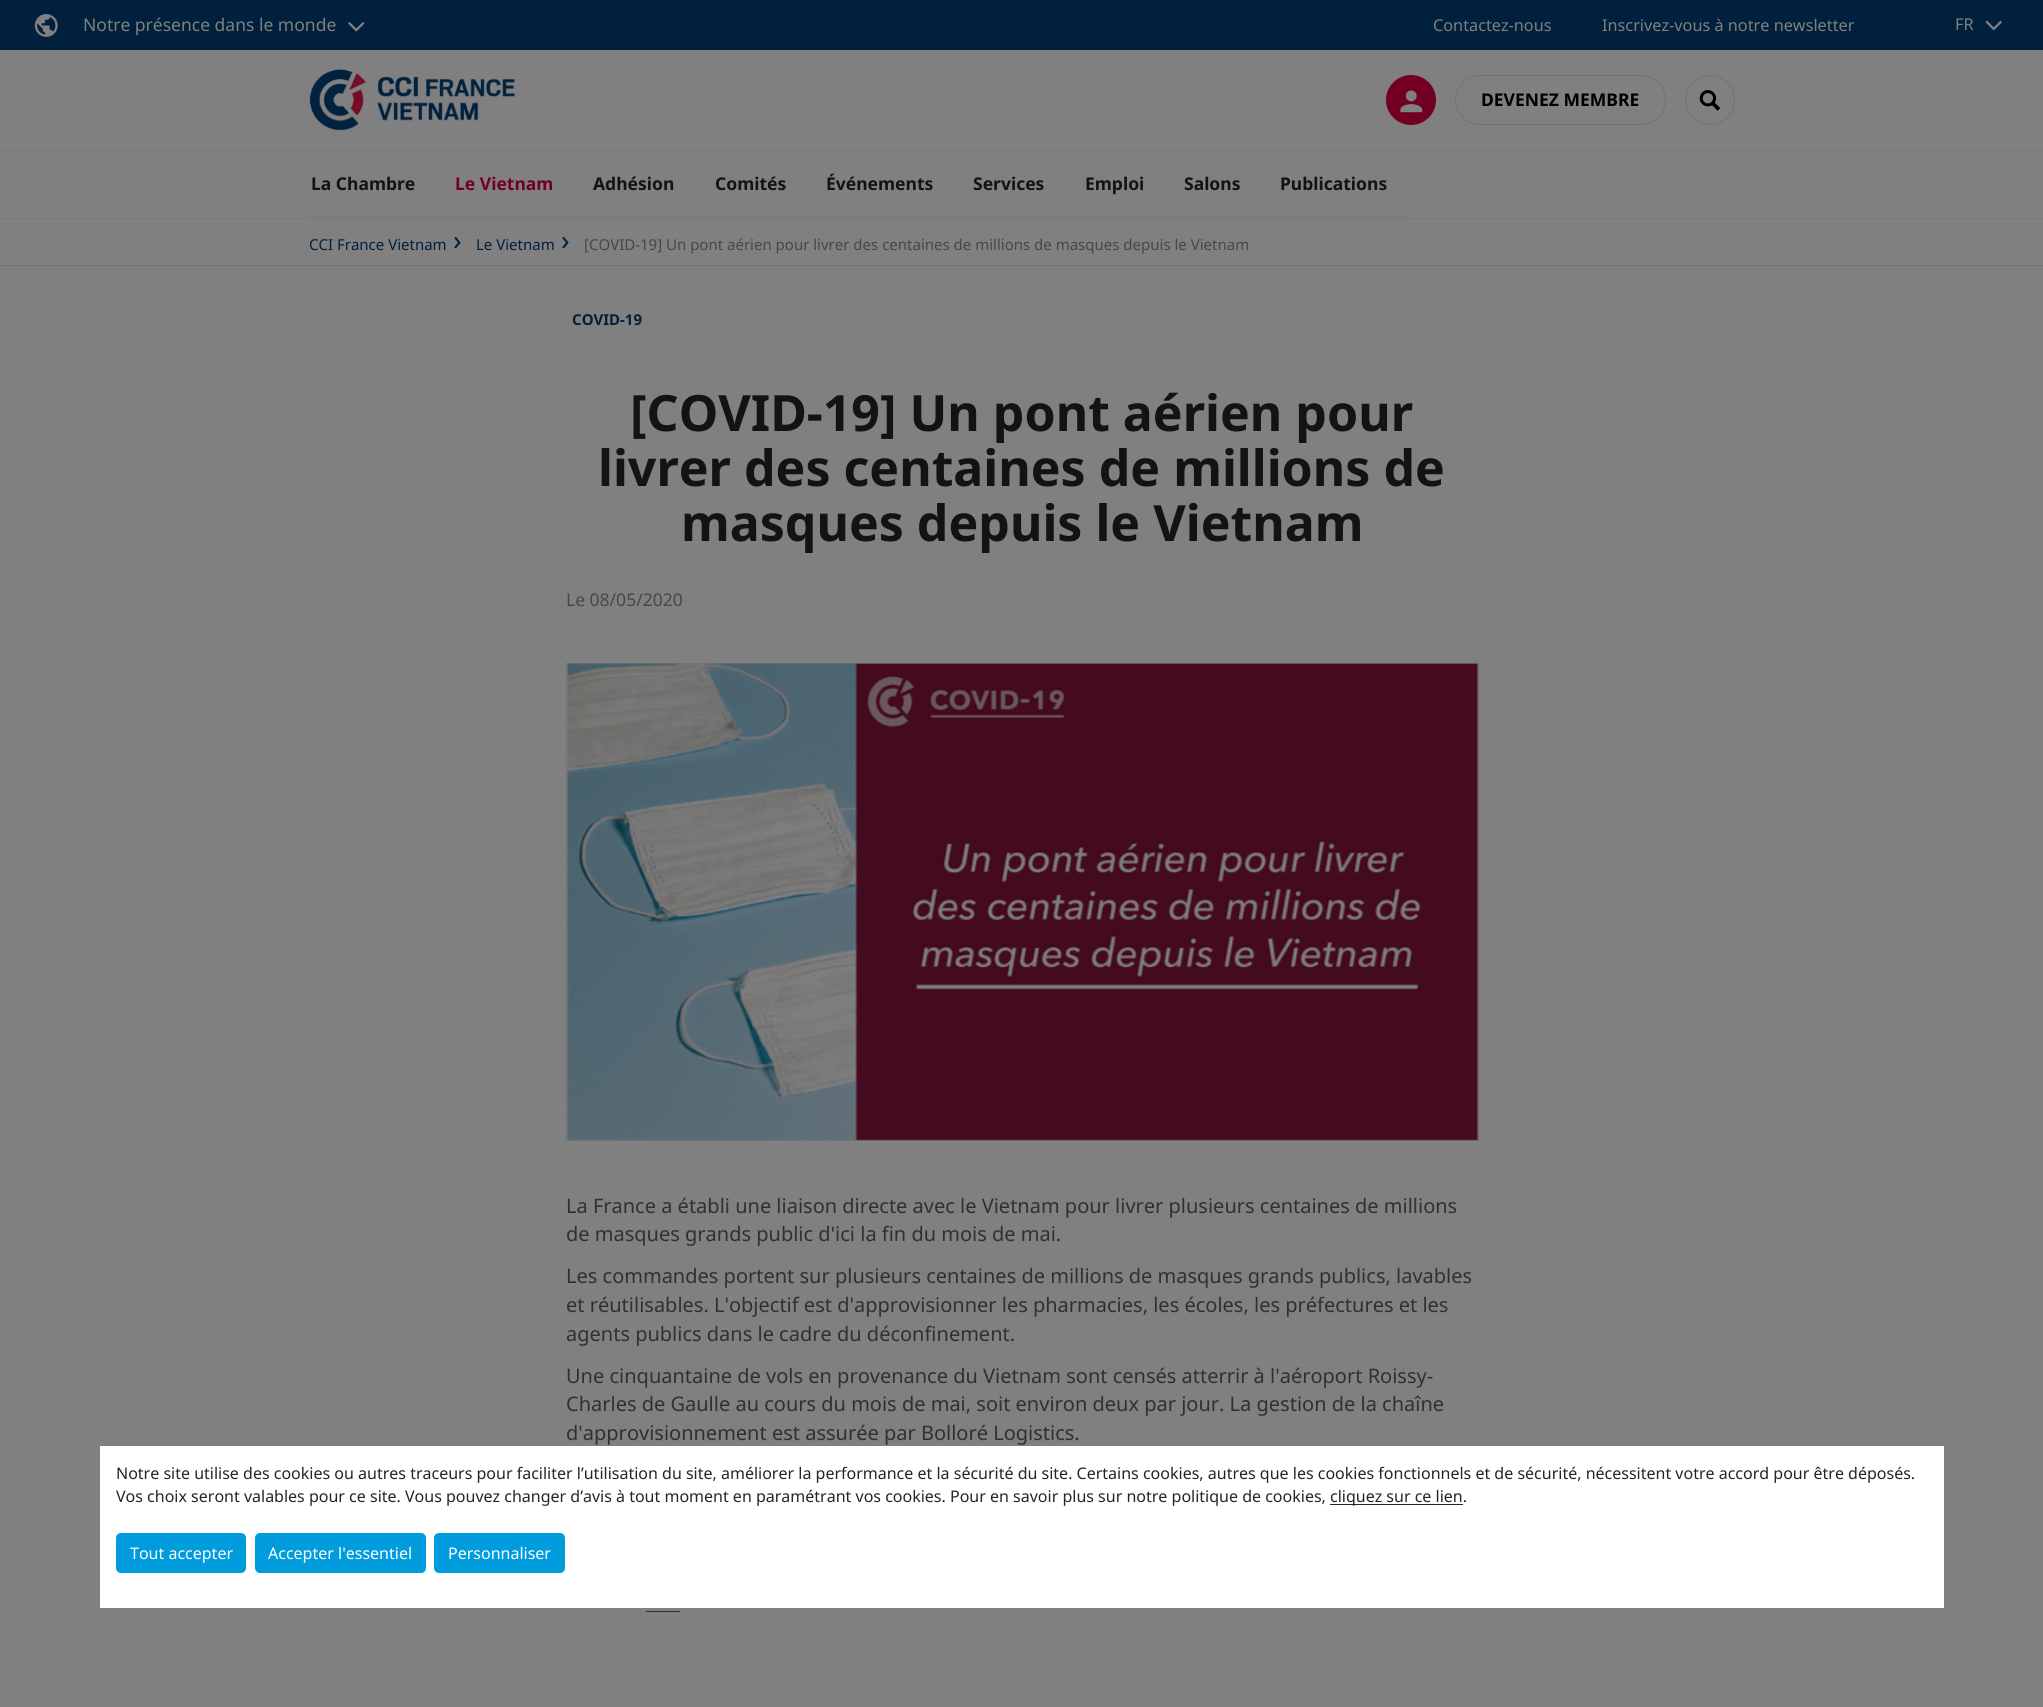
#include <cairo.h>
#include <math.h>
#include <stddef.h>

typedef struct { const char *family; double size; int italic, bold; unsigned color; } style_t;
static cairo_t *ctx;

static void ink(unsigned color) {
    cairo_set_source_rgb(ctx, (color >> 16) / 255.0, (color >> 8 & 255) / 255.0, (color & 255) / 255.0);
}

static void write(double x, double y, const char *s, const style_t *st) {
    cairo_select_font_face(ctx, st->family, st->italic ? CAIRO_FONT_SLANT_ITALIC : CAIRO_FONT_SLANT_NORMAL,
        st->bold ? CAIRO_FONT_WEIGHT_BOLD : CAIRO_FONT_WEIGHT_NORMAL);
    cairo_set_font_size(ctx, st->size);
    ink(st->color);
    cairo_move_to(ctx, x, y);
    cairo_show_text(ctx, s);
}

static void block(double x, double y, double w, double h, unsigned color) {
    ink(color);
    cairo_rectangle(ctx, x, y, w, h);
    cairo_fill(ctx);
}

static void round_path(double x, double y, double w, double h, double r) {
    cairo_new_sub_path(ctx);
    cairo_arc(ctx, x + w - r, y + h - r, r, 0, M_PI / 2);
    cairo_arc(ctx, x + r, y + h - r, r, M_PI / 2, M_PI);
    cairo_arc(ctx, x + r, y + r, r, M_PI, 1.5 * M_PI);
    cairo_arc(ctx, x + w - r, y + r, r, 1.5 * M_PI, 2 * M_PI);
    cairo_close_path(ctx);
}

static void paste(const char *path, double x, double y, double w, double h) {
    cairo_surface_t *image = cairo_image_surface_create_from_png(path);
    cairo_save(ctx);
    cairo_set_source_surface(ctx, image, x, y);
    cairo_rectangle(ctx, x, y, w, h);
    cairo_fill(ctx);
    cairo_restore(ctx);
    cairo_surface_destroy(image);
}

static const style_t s1 = {"Noto Sans", 17.5, 0, 0, 0x808080};
static const style_t s2 = {"Noto Sans", 16.25, 0, 0, 0x808080};
static const style_t s3 = {"Noto Sans", 17.5, 0, 1, 0x000000};
static const style_t s4 = {"Noto Sans", 17.5, 0, 1, 0x131313};
static const style_t s5 = {"Noto Sans", 17.5, 0, 1, 0x730023};
static const style_t s6 = {"Noto Sans", 15, 0, 0, 0x00203d};
static const style_t s7 = {"Noto Sans", 28, 0, 0, 0x00203d};
static const style_t s8 = {"Noto Sans", 15, 0, 0, 0x474747};
static const style_t s9 = {"Noto Sans", 15, 0, 1, 0x00203d};
static const style_t s10 = {"Noto Sans", 50, 0, 1, 0x131313};
static const style_t s11 = {"Noto Sans", 17.5, 0, 0, 0x474747};
static const style_t s12 = {"Noto Sans", 20, 0, 0, 0x303030};
static const style_t s13 = {"Noto Sans", 16, 0, 0, 0x252525};
static const style_t s14 = {"Noto Sans", 16, 0, 0, 0xffffff};

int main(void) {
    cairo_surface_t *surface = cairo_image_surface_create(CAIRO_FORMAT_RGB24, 2043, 1707);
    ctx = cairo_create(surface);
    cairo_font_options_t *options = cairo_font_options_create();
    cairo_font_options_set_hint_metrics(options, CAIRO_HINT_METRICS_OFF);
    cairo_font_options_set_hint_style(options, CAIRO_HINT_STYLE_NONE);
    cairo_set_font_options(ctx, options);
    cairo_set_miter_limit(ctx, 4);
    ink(0x808080);
    cairo_paint(ctx);
    block(0, 218, 2043, 1, 0x797979);
    block(0, 0, 2043, 50, 0x00203d);
    paste("pic1.png", 34, 14, 24, 23);
    write(83, 31, "Notre présence dans le monde", &s1);
    paste("pic2.png", 348, 22, 17, 10);
    write(1433, 31, "Contactez-nous", &s2);
    write(1602, 31, "Inscrivez-vous à notre newsletter", &s2);
    write(1955, 30, "FR", &s2);
    paste("pic3.png", 1985, 20, 17, 10);
    block(0, 150, 2043, 1, 0x797979);
    paste("pic4.png", 309, 69, 206, 62);
    ink(0x730023);
    cairo_arc(ctx, 1411, 100, 25, 0, 2 * M_PI);
    cairo_fill(ctx);
    paste("pic5.png", 1400, 90, 23, 23);
    round_path(1455.5, 75.5, 210, 49, 24.5);
    ink(0x727272);
    cairo_set_line_width(ctx, 1);
    cairo_stroke(ctx);
    write(1481, 106, "DEVENEZ MEMBRE", &s3);
    cairo_new_path(ctx);
    cairo_arc(ctx, 1710, 100, 24.5, 0, 2 * M_PI);
    ink(0x727272);
    cairo_stroke(ctx);
    paste("pic6.png", 1699, 90, 22, 21);
    block(310, 216, 1098, 1, 0x797979);
    write(311, 190, "La Chambre", &s4);
    write(455, 190, "Le Vietnam", &s5);
    write(593, 190, "Adhésion", &s4);
    write(715, 190, "Comités", &s4);
    write(826, 190, "Événements", &s4);
    write(973, 190, "Services", &s4);
    write(1085, 190, "Emploi", &s4);
    write(1184, 190, "Salons", &s4);
    write(1280, 190, "Publications", &s4);
    block(0, 265, 2043, 1, 0x727272);
    write(309, 250, "CCI France Vietnam", &s6);
    write(453, 250, "›", &s7);
    write(476, 250, "Le Vietnam", &s6);
    write(561, 250, "›", &s7);
    write(584, 250, "[COVID-19] Un pont aérien pour livrer des centaines de millions de masques depuis le Vietnam", &s8);
    write(572, 325, "COVID-19", &s9);
    write(630, 431, "[COVID-19] Un pont aérien pour", &s10);
    write(598, 486, "livrer des centaines de millions de", &s10);
    write(681, 541, "masques depuis le Vietnam", &s10);
    write(566, 606, "Le 08/05/2020", &s11);
    cairo_rectangle(ctx, 566.5, 663.5, 912, 477);
    ink(0x727272);
    cairo_stroke(ctx);
    paste("pic7.png", 567, 663, 912, 478);
    write(566, 1213, "La France a établi une liaison directe avec le Vietnam pour livrer plusieurs centaines de millions", &s12);
    write(566, 1241, "de masques grands public d'ici la fin du mois de mai.", &s12);
    write(566, 1283, "Les commandes portent sur plusieurs centaines de millions de masques grands publics, lavables", &s12);
    write(566, 1312, "et réutilisables. L'objectif est d'approvisionner les pharmacies, les écoles, les préfectures et les", &s12);
    write(566, 1341, "agents publics dans le cadre du déconfinement.", &s12);
    write(566, 1383, "Une cinquantaine de vols en provenance du Vietnam sont censés atterrir à l'aéroport Roissy-", &s12);
    write(566, 1411, "Charles de Gaulle au cours du mois de mai, soit environ deux par jour. La gestion de la chaîne", &s12);
    write(566, 1440, "d'approvisionnement est assurée par Bolloré Logistics.", &s12);
    block(646, 1611, 34, 1, 0x303030);
    block(100, 1446, 1844, 162, 0xffffff);
    write(116, 1479, "Notre site utilise des cookies ou autres traceurs pour faciliter l’utilisation du site, améliorer la performance et la sécurité du site. Certains cookies, autres que les cookies fonctionnels et de sécurité, nécessitent votre accord pour être déposés.", &s13);
    write(116, 1502, "Vos choix seront valables pour ce site. Vous pouvez changer d’avis à tout moment en paramétrant vos cookies. Pour en savoir plus sur notre politique de cookies,", &s13);
    block(1330, 1504, 133, 1, 0x252525);
    write(1330, 1502, "cliquez sur ce lien.", &s13);
    ink(0x009cde);
    round_path(116, 1533, 130, 40, 5);
    cairo_fill(ctx);
    write(130, 1559, "Tout accepter", &s14);
    ink(0x009cde);
    round_path(255, 1533, 171, 40, 5);
    cairo_fill(ctx);
    write(268, 1559, "Accepter l'essentiel", &s14);
    ink(0x009cde);
    round_path(434, 1533, 131, 40, 5);
    cairo_fill(ctx);
    write(448, 1559, "Personnaliser", &s14);
    cairo_surface_write_to_png(surface, "screenshot.png");
    cairo_font_options_destroy(options);
    cairo_destroy(ctx);
    cairo_surface_destroy(surface);
    return 0;
}
